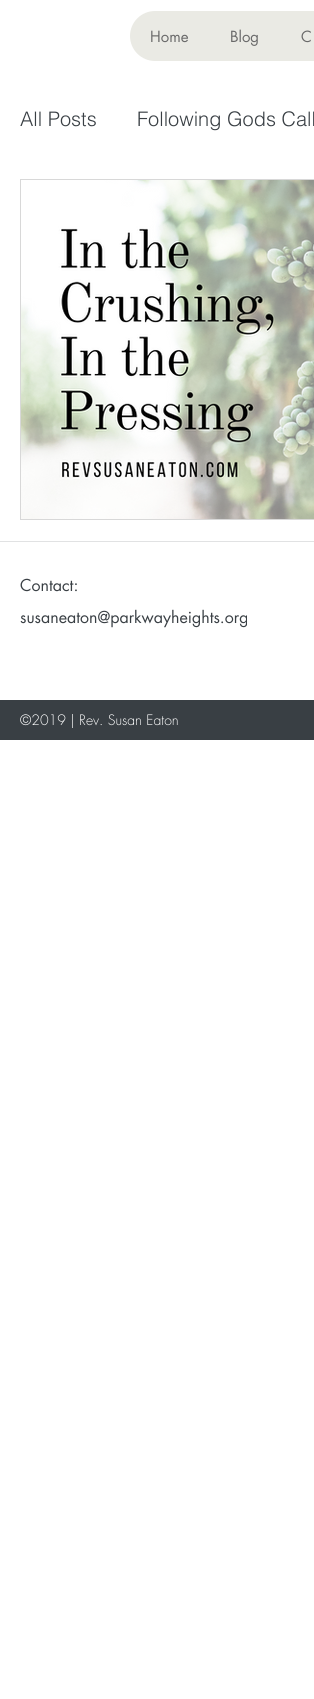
#include <cairo.h>
#include <math.h>
#include <stddef.h>

typedef struct { const char *family; double size; int italic, bold; unsigned color; } style_t;
static cairo_t *ctx;

static void ink(unsigned color) {
    cairo_set_source_rgb(ctx, (color >> 16) / 255.0, (color >> 8 & 255) / 255.0, (color & 255) / 255.0);
}

static void write(double x, double y, const char *s, const style_t *st) {
    cairo_select_font_face(ctx, st->family, st->italic ? CAIRO_FONT_SLANT_ITALIC : CAIRO_FONT_SLANT_NORMAL,
        st->bold ? CAIRO_FONT_WEIGHT_BOLD : CAIRO_FONT_WEIGHT_NORMAL);
    cairo_set_font_size(ctx, st->size);
    ink(st->color);
    cairo_move_to(ctx, x, y);
    cairo_show_text(ctx, s);
}

static void block(double x, double y, double w, double h, unsigned color) {
    ink(color);
    cairo_rectangle(ctx, x, y, w, h);
    cairo_fill(ctx);
}

static void round_path(double x, double y, double w, double h, double r) {
    cairo_new_sub_path(ctx);
    cairo_arc(ctx, x + w - r, y + h - r, r, 0, M_PI / 2);
    cairo_arc(ctx, x + r, y + h - r, r, M_PI / 2, M_PI);
    cairo_arc(ctx, x + r, y + r, r, M_PI, 1.5 * M_PI);
    cairo_arc(ctx, x + w - r, y + r, r, 1.5 * M_PI, 2 * M_PI);
    cairo_close_path(ctx);
}

static void paste(const char *path, double x, double y, double w, double h) {
    cairo_surface_t *image = cairo_image_surface_create_from_png(path);
    cairo_save(ctx);
    cairo_set_source_surface(ctx, image, x, y);
    cairo_rectangle(ctx, x, y, w, h);
    cairo_fill(ctx);
    cairo_restore(ctx);
    cairo_surface_destroy(image);
}

static const style_t s1 = {"futura", 15, 0, 0, 0x696969};
static const style_t s2 = {"helvetica Light", 20, 0, 0, 0x393f44};
static const style_t s3 = {"futura", 16, 0, 0, 0x393f44};
static const style_t s4 = {"futura Light", 14, 0, 0, 0xffffff};

int main(void) {
    cairo_surface_t *surface = cairo_image_surface_create(CAIRO_FORMAT_RGB24, 314, 1699);
    ctx = cairo_create(surface);
    cairo_font_options_t *options = cairo_font_options_create();
    cairo_font_options_set_hint_metrics(options, CAIRO_HINT_METRICS_OFF);
    cairo_font_options_set_hint_style(options, CAIRO_HINT_STYLE_NONE);
    cairo_set_font_options(ctx, options);
    cairo_set_miter_limit(ctx, 4);
    ink(0xffffff);
    cairo_paint(ctx);
    ink(0xeaeae4);
    round_path(130, 11, 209, 50, 25);
    cairo_fill(ctx);
    write(150, 42, "Home", &s1);
    write(230, 42, "Blog", &s1);
    write(301, 42, "C", &s1);
    write(20, 126, "All Posts", &s2);
    write(137, 126, "Following Gods Call", &s2);
    cairo_rectangle(ctx, 20.5, 179.5, 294, 340);
    ink(0xd8d8d8);
    cairo_set_line_width(ctx, 1);
    cairo_stroke(ctx);
    paste("pic1.png", 21, 180, 293, 339);
    block(0, 541, 314, 1, 0xe1e2e3);
    write(20, 591, "Contact:", &s3);
    write(20, 623, "susaneaton@parkwayheights.org", &s3);
    block(0, 700, 314, 40, 0x393f44);
    write(20, 725, "©2019 | Rev. Susan Eaton", &s4);
    cairo_surface_write_to_png(surface, "screenshot.png");
    cairo_font_options_destroy(options);
    cairo_destroy(ctx);
    cairo_surface_destroy(surface);
    return 0;
}
